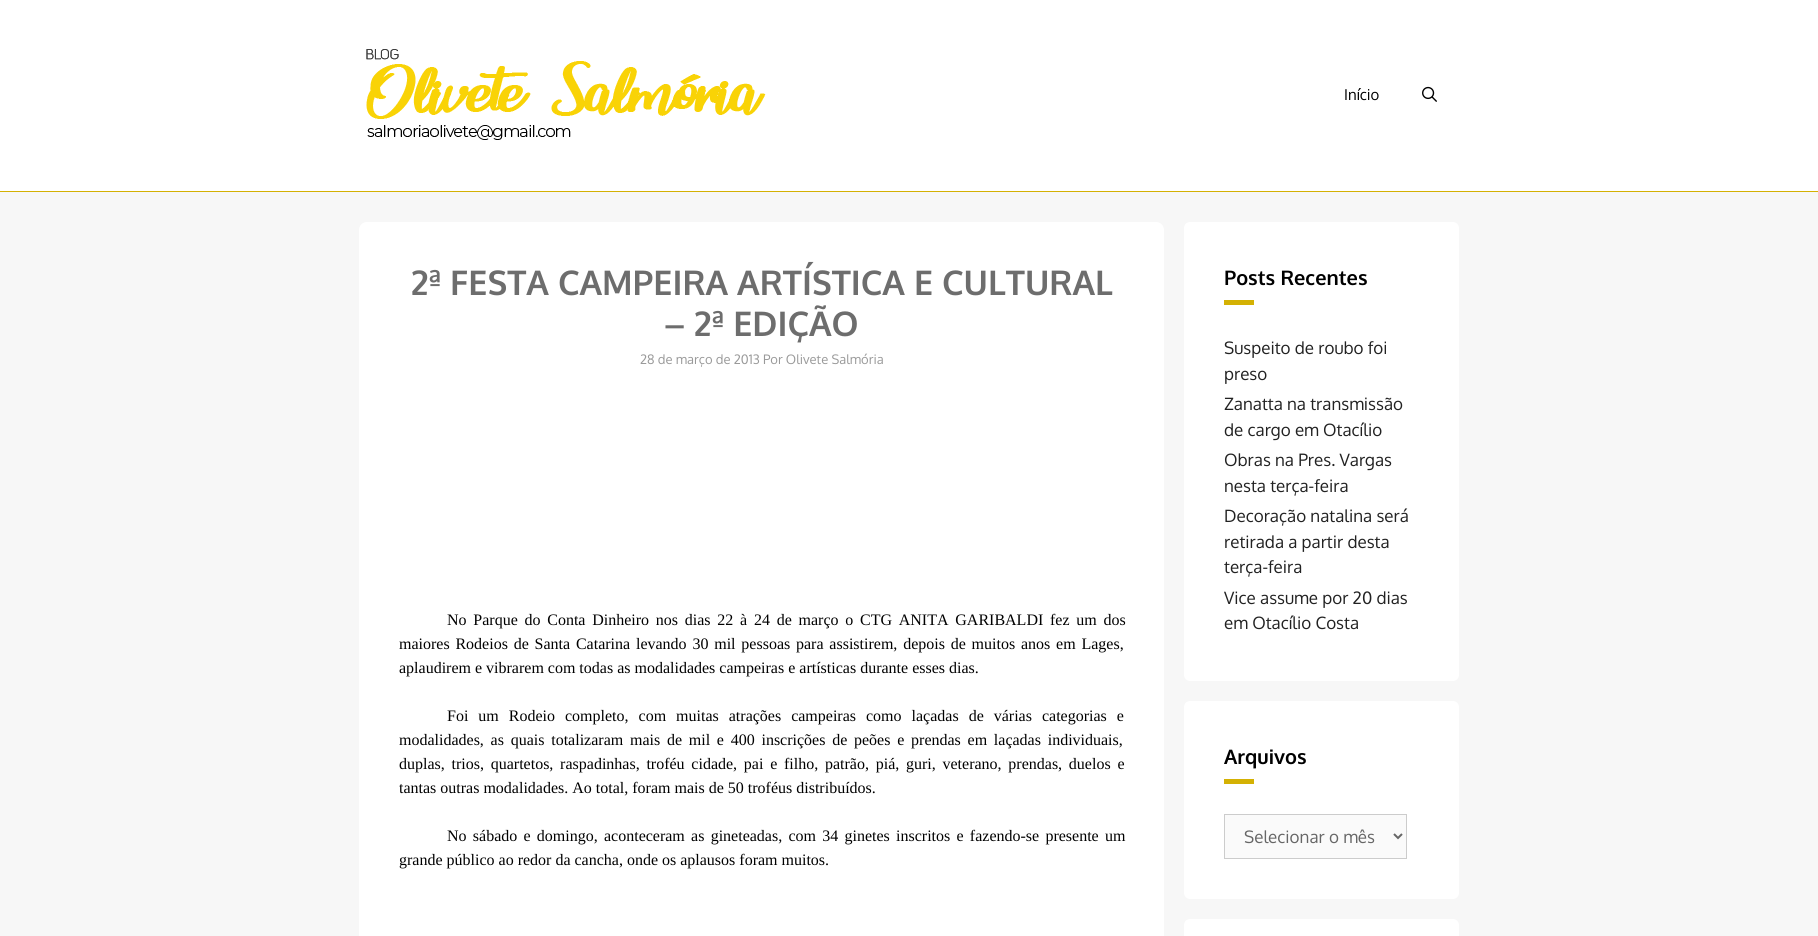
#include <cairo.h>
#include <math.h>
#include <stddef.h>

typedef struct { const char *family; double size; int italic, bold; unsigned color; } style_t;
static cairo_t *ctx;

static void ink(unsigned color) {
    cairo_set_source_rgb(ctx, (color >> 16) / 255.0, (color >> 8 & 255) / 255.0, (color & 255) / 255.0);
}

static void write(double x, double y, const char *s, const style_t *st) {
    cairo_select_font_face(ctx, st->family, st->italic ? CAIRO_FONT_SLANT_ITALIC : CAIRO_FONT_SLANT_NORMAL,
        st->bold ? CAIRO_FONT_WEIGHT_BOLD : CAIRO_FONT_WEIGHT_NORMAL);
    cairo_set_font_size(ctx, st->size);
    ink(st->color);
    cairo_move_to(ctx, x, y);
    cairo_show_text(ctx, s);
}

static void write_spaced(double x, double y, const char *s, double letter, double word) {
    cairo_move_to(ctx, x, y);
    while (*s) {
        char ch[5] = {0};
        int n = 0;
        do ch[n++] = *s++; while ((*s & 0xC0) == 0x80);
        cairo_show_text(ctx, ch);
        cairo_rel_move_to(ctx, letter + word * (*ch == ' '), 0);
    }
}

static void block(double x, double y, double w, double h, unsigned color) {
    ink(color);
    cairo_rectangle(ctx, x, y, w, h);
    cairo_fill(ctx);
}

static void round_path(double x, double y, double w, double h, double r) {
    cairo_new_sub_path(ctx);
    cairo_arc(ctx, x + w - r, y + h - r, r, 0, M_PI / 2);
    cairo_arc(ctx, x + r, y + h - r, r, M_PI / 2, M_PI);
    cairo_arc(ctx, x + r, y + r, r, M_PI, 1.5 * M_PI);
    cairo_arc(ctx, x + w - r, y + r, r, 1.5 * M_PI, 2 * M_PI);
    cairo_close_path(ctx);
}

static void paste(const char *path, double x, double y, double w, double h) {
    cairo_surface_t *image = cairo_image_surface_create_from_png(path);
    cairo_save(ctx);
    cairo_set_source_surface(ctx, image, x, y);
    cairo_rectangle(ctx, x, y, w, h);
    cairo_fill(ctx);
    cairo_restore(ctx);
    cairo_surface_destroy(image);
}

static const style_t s1 = {"Oxygen", 15, 0, 0, 0x000000};
static const style_t s2 = {"Oxygen", 34, 0, 1, 0x6d6d6d};
static const style_t s3 = {"Oxygen", 13, 0, 0, 0x999999};
static const style_t s4 = {"Liberation Serif", 16, 0, 0, 0x000000};
static const style_t s5 = {"Oxygen", 20, 0, 1, 0x000000};
static const style_t s6 = {"Oxygen", 17, 0, 0, 0x222222};
static const style_t s7 = {"Oxygen", 17, 0, 0, 0x666666};

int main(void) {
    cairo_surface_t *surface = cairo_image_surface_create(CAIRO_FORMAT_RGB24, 1818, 936);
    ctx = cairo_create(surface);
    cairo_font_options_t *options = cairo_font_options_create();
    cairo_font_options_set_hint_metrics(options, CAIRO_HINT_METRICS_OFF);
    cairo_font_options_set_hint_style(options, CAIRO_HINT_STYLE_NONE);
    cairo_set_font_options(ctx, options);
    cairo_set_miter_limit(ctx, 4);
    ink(0xf7f7f7);
    cairo_paint(ctx);
    block(0, 0, 1818, 191, 0xffffff);
    block(0, 191, 1818, 1, 0xd4b103);
    paste("pic1.png", 366, 49, 400, 91);
    write(1344, 100, "Início", &s1);
    paste("pic2.png", 1422, 86, 15, 16);
    ink(0xffffff);
    round_path(359, 222, 805, 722, 8);
    cairo_fill(ctx);
    write(411, 295, "2ª FESTA CAMPEIRA ARTÍSTICA E CULTURAL", &s2);
    write(664, 336, "– 2ª EDIÇÃO", &s2);
    write(640, 364, "28 de março de 2013 Por Olivete Salmória", &s3);
    cairo_select_font_face(ctx, "Liberation Serif", CAIRO_FONT_SLANT_NORMAL, CAIRO_FONT_WEIGHT_NORMAL);
    cairo_set_font_size(ctx, 16);
    ink(0x000000);
    write_spaced(447, 625, "No Parque do Conta Dinheiro nos dias 22 à 24 de março o CTG ANITA GARIBALDI fez um dos", 0, 2.75);
    write_spaced(399, 649, "maiores Rodeios de Santa Catarina levando 30 mil pessoas para assistirem, depois de muitos anos em Lages,", 0, 1.8);
    write(399, 673, "aplaudirem e vibrarem com todas as modalidades campeiras e artísticas durante esses dias.", &s4);
    write_spaced(447, 721, "Foi um Rodeio completo, com muitas atrações campeiras como laçadas de várias categorias e", 0, 6);
    write_spaced(399, 745, "modalidades, as quais totalizaram mais de mil e 400 inscrições de peões e prendas em laçadas individuais,", 0, 2.75);
    write_spaced(399, 769, "duplas, trios, quartetos, raspadinhas, troféu cidade, pai e filho, patrão, piá, guri, veterano, prendas, duelos e", 0, 2.75);
    write(399, 793, "tantas outras modalidades. Ao total, foram mais de 50 troféus distribuídos.", &s4);
    write_spaced(447, 841, "No sábado e domingo, aconteceram as gineteadas, com 34 ginetes inscritos e fazendo-se presente um", 0, 2.25);
    write(399, 865, "grande público ao redor da cancha, onde os aplausos foram muitos.", &s4);
    ink(0xffffff);
    round_path(1184, 222, 275, 459, 6);
    cairo_fill(ctx);
    write(1224, 285, "Posts Recentes", &s5);
    block(1224, 300, 30, 5, 0xd4b103);
    write(1224, 354, "Suspeito de roubo foi", &s6);
    write(1224, 380, "preso", &s6);
    write(1224, 410, "Zanatta na transmissão", &s6);
    write(1224, 436, "de cargo em Otacílio", &s6);
    write(1224, 466, "Obras na Pres. Vargas", &s6);
    write(1224, 492, "nesta terça-feira", &s6);
    write(1224, 522, "Decoração natalina será", &s6);
    write(1224, 548, "retirada a partir desta", &s6);
    write(1224, 573, "terça-feira", &s6);
    write(1224, 604, "Vice assume por 20 dias", &s6);
    write(1224, 629, "em Otacílio Costa", &s6);
    ink(0xffffff);
    round_path(1184, 701, 275, 198, 6);
    cairo_fill(ctx);
    write(1224, 764, "Arquivos", &s5);
    block(1224, 779, 30, 5, 0xd4b103);
    ink(0xfafafa);
    cairo_rectangle(ctx, 1224.5, 814.5, 182, 44);
    cairo_fill_preserve(ctx);
    ink(0xcccccc);
    cairo_set_line_width(ctx, 1);
    cairo_stroke(ctx);
    cairo_new_path(ctx);
    cairo_move_to(ctx, 1394, 834);
    cairo_line_to(ctx, 1398, 838);
    cairo_line_to(ctx, 1402, 834);
    ink(0x666666);
    cairo_set_line_width(ctx, 2);
    cairo_stroke(ctx);
    write(1244, 843, "Selecionar o mês", &s7);
    ink(0xffffff);
    round_path(1184, 919, 275, 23, 6);
    cairo_fill(ctx);
    cairo_surface_write_to_png(surface, "screenshot.png");
    cairo_font_options_destroy(options);
    cairo_destroy(ctx);
    cairo_surface_destroy(surface);
    return 0;
}
